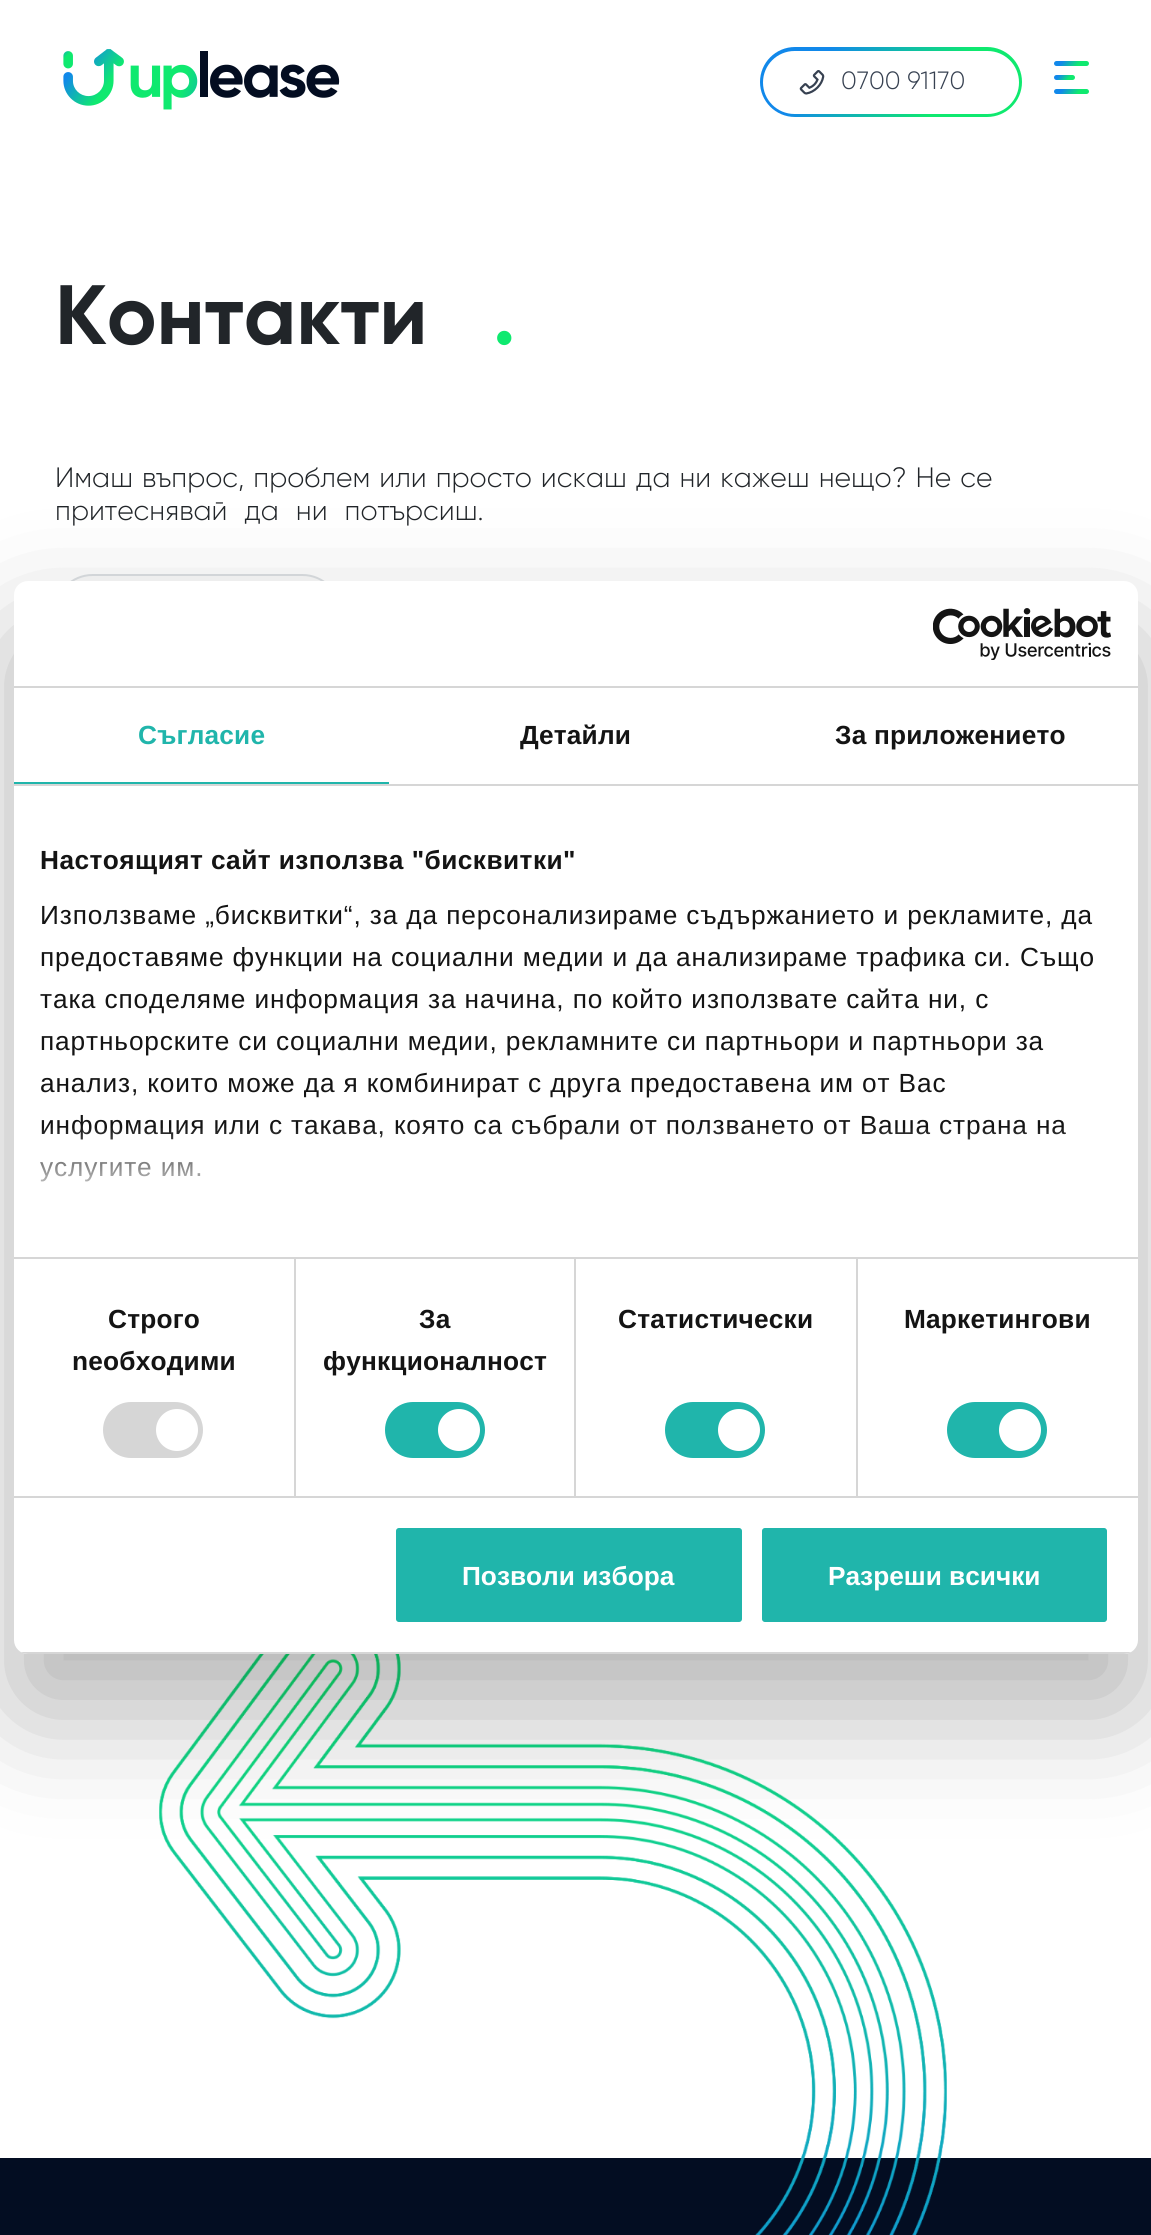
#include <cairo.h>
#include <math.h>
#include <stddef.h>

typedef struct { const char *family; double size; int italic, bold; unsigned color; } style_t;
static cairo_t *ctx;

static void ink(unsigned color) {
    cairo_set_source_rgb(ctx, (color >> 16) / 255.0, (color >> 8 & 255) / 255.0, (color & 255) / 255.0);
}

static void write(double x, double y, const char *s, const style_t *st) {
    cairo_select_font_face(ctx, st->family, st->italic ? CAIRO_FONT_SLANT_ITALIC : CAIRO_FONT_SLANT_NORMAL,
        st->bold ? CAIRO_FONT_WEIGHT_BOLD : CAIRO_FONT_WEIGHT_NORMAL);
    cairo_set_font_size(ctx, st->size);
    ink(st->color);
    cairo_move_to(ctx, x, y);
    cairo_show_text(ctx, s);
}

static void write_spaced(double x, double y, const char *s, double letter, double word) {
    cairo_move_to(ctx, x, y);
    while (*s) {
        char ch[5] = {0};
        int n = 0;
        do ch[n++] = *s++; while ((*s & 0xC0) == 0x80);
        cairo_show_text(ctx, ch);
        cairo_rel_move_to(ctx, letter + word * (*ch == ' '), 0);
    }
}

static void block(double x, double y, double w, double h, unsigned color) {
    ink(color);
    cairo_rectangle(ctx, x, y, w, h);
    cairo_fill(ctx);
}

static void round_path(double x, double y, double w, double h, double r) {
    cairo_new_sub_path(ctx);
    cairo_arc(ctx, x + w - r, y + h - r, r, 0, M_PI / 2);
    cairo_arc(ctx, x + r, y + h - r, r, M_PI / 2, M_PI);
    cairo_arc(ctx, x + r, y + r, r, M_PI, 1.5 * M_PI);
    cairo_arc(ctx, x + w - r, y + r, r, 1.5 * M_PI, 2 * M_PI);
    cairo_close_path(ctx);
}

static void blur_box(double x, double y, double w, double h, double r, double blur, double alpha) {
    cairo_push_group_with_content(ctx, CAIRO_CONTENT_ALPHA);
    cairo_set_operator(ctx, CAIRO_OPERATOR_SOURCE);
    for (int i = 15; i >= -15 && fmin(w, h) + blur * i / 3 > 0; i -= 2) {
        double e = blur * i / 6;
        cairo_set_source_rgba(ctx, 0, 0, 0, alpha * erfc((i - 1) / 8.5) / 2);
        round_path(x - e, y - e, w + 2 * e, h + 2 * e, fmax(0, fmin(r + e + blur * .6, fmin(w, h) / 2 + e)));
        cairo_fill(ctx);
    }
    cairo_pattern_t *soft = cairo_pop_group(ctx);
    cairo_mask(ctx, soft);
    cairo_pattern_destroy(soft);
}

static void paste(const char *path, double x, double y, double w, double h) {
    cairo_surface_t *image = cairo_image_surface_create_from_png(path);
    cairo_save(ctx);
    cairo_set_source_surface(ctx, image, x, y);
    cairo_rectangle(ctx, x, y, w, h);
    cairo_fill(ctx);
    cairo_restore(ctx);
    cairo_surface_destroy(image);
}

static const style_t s1 = {"Gilroy Light", 25, 0, 0, 0x374151};
static const style_t s2 = {"Gilroy", 84, 0, 1, 0x212529};
static const style_t s3 = {"Gilroy", 84, 0, 1, 0x0fe96f};
static const style_t s4 = {"Liberation Sans", 26.25, 0, 1, 0xffffff};

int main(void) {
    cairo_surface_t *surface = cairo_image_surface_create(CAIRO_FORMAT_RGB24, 1151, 2235);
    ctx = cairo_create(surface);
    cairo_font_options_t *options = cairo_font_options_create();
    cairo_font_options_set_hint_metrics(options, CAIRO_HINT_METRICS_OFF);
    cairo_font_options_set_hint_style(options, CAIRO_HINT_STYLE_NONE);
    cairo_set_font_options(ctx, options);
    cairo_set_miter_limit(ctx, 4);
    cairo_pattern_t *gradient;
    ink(0xffffff);
    cairo_paint(ctx);
    paste("pic1.png", 63, 49, 277, 61);
    gradient = cairo_pattern_create_linear(784, 10, 997, 154);
    cairo_pattern_add_color_stop_rgba(gradient, 0.23, 0.067, 0.533, 0.918, 1);
    cairo_pattern_add_color_stop_rgba(gradient, 0.7, 0.059, 0.914, 0.435, 1);
    cairo_set_source(ctx, gradient);
    cairo_pattern_destroy(gradient);
    round_path(760, 47, 262, 70, 35);
    cairo_fill(ctx);
    ink(0xffffff);
    round_path(763, 51, 256, 63, 31.5);
    cairo_fill(ctx);
    paste("pic2.png", 799, 70, 26, 25);
    write(841, 89, "0700 91170", &s1);
    gradient = cairo_pattern_create_linear(1058, 55, 1084, 73);
    cairo_pattern_add_color_stop_rgba(gradient, 0.23, 0.067, 0.533, 0.918, 1);
    cairo_pattern_add_color_stop_rgba(gradient, 0.7, 0.059, 0.914, 0.435, 1);
    cairo_set_source(ctx, gradient);
    cairo_pattern_destroy(gradient);
    round_path(1054, 61, 35, 5, 2.5);
    cairo_fill(ctx);
    gradient = cairo_pattern_create_linear(1056, 72, 1072, 84);
    cairo_pattern_add_color_stop_rgba(gradient, 0.23, 0.067, 0.533, 0.918, 1);
    cairo_pattern_add_color_stop_rgba(gradient, 0.7, 0.059, 0.914, 0.435, 1);
    cairo_set_source(ctx, gradient);
    cairo_pattern_destroy(gradient);
    round_path(1054, 75, 21, 5, 2.5);
    cairo_fill(ctx);
    gradient = cairo_pattern_create_linear(1058, 83, 1084, 101);
    cairo_pattern_add_color_stop_rgba(gradient, 0.23, 0.067, 0.533, 0.918, 1);
    cairo_pattern_add_color_stop_rgba(gradient, 0.7, 0.059, 0.914, 0.435, 1);
    cairo_set_source(ctx, gradient);
    cairo_pattern_destroy(gradient);
    round_path(1054, 89, 35, 5, 2.5);
    cairo_fill(ctx);
    write(55, 344, "Контакти", &s2);
    write(493, 344, ".", &s3);
    cairo_select_font_face(ctx, "Gilroy Light", CAIRO_FONT_SLANT_NORMAL, CAIRO_FONT_WEIGHT_NORMAL);
    cairo_set_font_size(ctx, 28);
    ink(0x212529);
    write_spaced(55, 487, "Имаш въпрос, проблем или просто искаш да ни кажеш нещо? Не се", 0, 1.5);
    write_spaced(55, 520, "притеснявай да ни потърсиш.", 0, 9.5);
    ink(0xfafafa);
    round_path(55, 575, 285, 75, 37.5);
    cairo_fill_preserve(ctx);
    ink(0xdce0e3);
    cairo_stroke(ctx);
    block(0, 2158, 1151, 77, 0x030d22);
    paste("pic3.png", 159, 1654, 788, 581);
    ink(0x000000);
    blur_box(14, 637, 1124, 1073, 14, 59.5, 0.3);
    ink(0xffffff);
    round_path(14, 581, 1124, 1073, 14);
    cairo_fill(ctx);
    block(14, 686, 1124, 2, 0xd6d6d6);
    paste("pic4.png", 933, 608, 178, 52);
    block(14, 784, 1124, 2, 0xd6d6d6);
    block(14, 782, 375, 2, 0x20b5ab);
    cairo_select_font_face(ctx, "Liberation Sans", CAIRO_FONT_SLANT_NORMAL, CAIRO_FONT_WEIGHT_BOLD);
    cairo_set_font_size(ctx, 26.25);
    write_spaced(138, 744, "Съгласие", 0.2, 0);
    ink(0x141414);
    write_spaced(520, 744, "Детайли", 0.2, 0);
    write_spaced(835, 744, "За приложението", 0.2, 0);
    block(294, 1258, 2, 238, 0xd6d6d6);
    block(574, 1258, 2, 238, 0xd6d6d6);
    block(856, 1258, 2, 238, 0xd6d6d6);
    block(14, 1257, 1124, 2, 0xd6d6d6);
    ink(0x141414);
    write_spaced(40, 869, "Настоящият сайт използва \"бисквитки\"", 0.45, 0);
    cairo_select_font_face(ctx, "Liberation Sans", CAIRO_FONT_SLANT_NORMAL, CAIRO_FONT_WEIGHT_NORMAL);
    write_spaced(40, 924, "Използваме „бисквитки“, за да персонализираме съдържанието и рекламите, да", 0.88, 0);
    write_spaced(40, 966, "предоставяме функции на социални медии и да анализираме трафика си. Също", 0.88, 0);
    write_spaced(40, 1008, "така споделяме информация за начина, по който използвате сайта ни, с", 0.88, 0);
    write_spaced(40, 1050, "партньорските си социални медии, рекламните си партньори и партньори за", 0.88, 0);
    write_spaced(40, 1092, "анализ, които може да я комбинират с друга предоставена им от Вас", 0.88, 0);
    write_spaced(40, 1134, "информация или с такава, която са събрали от ползването от Ваша страна на", 0.88, 0);
    write_spaced(40, 1176, "услугите им.", 0.88, 0);
    gradient = cairo_pattern_create_linear(564, 1257, 564, 1126);
    cairo_pattern_add_color_stop_rgba(gradient, 0, 1, 1, 1, 1);
    cairo_pattern_add_color_stop_rgba(gradient, 0.5, 1, 1, 1, 0.8);
    cairo_pattern_add_color_stop_rgba(gradient, 1, 1, 1, 1, 0);
    cairo_set_source(ctx, gradient);
    cairo_pattern_destroy(gradient);
    cairo_rectangle(ctx, 40, 1128, 1026, 54);
    cairo_fill(ctx);
    block(14, 1496, 1124, 2, 0xd6d6d6);
    cairo_select_font_face(ctx, "Liberation Sans", CAIRO_FONT_SLANT_NORMAL, CAIRO_FONT_WEIGHT_BOLD);
    ink(0x141414);
    write_spaced(108, 1328, "Строго", 0.2, 0);
    write_spaced(72, 1370, "nеобходими", 0.2, 0);
    ink(0xd6d6d6);
    round_path(103, 1402, 100, 56, 28);
    cairo_fill(ctx);
    ink(0xffffff);
    cairo_arc(ctx, 177, 1430, 21, 0, 2 * M_PI);
    cairo_fill(ctx);
    ink(0x141414);
    write_spaced(419, 1328, "За", 0.2, 0);
    write_spaced(323, 1370, "функционалност", 0.2, 0);
    ink(0x20b5ab);
    round_path(385, 1402, 100, 56, 28);
    cairo_fill(ctx);
    ink(0xffffff);
    cairo_arc(ctx, 459, 1430, 21, 0, 2 * M_PI);
    cairo_fill(ctx);
    ink(0x141414);
    write_spaced(618, 1328, "Статистически", 0.2, 0);
    ink(0x20b5ab);
    round_path(665, 1402, 100, 56, 28);
    cairo_fill(ctx);
    ink(0xffffff);
    cairo_arc(ctx, 739, 1430, 21, 0, 2 * M_PI);
    cairo_fill(ctx);
    ink(0x141414);
    write_spaced(904, 1328, "Маркетингови", 0.2, 0);
    ink(0x20b5ab);
    round_path(947, 1402, 100, 56, 28);
    cairo_fill(ctx);
    ink(0xffffff);
    cairo_arc(ctx, 1020, 1430, 21, 0, 2 * M_PI);
    cairo_fill(ctx);
    cairo_save(ctx);
    round_path(14, 581, 1124, 1073, 14);
    cairo_clip(ctx);
    block(14, 1652, 1124, 2, 0xd6d6d6);
    cairo_restore(ctx);
    ink(0x20b5ab);
    round_path(394, 1526, 350, 98, 5);
    cairo_fill_preserve(ctx);
    ink(0xffffff);
    cairo_set_line_width(ctx, 4);
    cairo_stroke(ctx);
    write(462, 1585, "Позволи избора", &s4);
    ink(0x20b5ab);
    round_path(760, 1526, 349, 98, 5);
    cairo_fill_preserve(ctx);
    ink(0xffffff);
    cairo_stroke(ctx);
    write(828, 1585, "Разреши всички", &s4);
    cairo_surface_write_to_png(surface, "screenshot.png");
    cairo_font_options_destroy(options);
    cairo_destroy(ctx);
    cairo_surface_destroy(surface);
    return 0;
}
